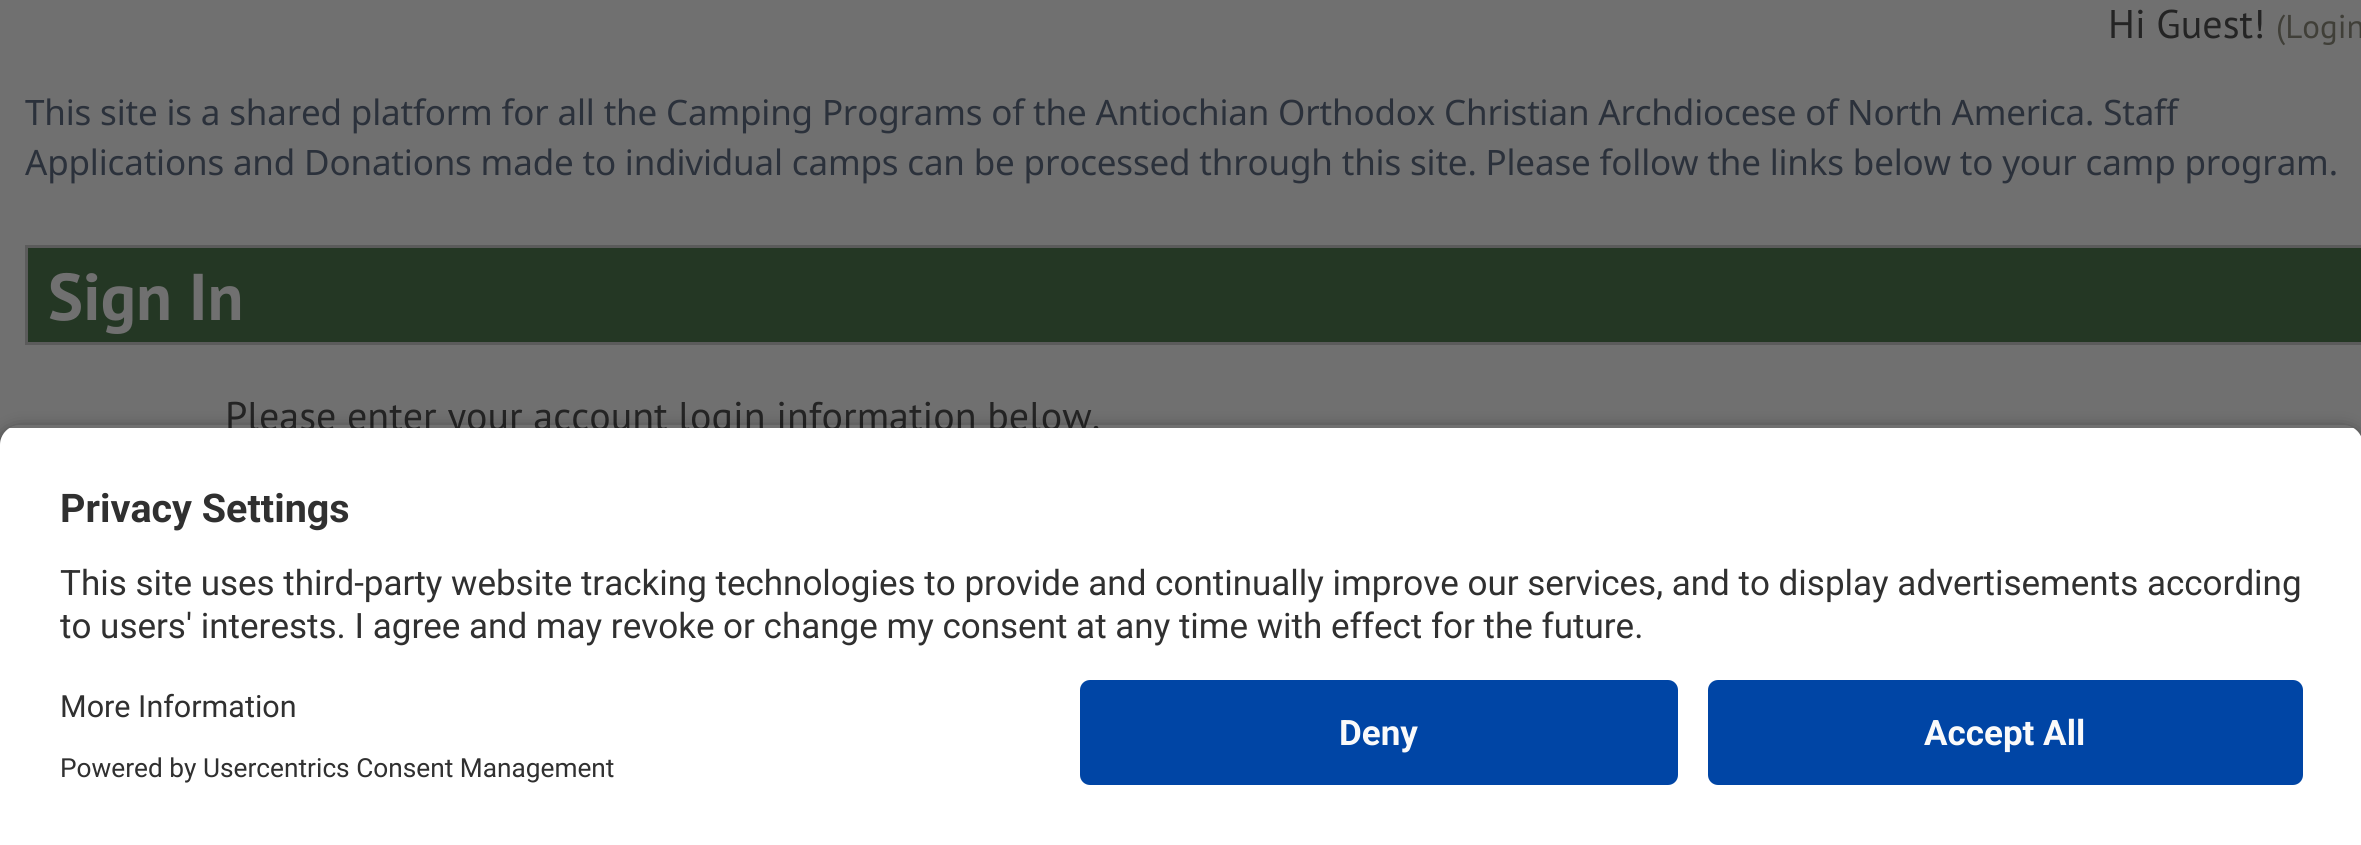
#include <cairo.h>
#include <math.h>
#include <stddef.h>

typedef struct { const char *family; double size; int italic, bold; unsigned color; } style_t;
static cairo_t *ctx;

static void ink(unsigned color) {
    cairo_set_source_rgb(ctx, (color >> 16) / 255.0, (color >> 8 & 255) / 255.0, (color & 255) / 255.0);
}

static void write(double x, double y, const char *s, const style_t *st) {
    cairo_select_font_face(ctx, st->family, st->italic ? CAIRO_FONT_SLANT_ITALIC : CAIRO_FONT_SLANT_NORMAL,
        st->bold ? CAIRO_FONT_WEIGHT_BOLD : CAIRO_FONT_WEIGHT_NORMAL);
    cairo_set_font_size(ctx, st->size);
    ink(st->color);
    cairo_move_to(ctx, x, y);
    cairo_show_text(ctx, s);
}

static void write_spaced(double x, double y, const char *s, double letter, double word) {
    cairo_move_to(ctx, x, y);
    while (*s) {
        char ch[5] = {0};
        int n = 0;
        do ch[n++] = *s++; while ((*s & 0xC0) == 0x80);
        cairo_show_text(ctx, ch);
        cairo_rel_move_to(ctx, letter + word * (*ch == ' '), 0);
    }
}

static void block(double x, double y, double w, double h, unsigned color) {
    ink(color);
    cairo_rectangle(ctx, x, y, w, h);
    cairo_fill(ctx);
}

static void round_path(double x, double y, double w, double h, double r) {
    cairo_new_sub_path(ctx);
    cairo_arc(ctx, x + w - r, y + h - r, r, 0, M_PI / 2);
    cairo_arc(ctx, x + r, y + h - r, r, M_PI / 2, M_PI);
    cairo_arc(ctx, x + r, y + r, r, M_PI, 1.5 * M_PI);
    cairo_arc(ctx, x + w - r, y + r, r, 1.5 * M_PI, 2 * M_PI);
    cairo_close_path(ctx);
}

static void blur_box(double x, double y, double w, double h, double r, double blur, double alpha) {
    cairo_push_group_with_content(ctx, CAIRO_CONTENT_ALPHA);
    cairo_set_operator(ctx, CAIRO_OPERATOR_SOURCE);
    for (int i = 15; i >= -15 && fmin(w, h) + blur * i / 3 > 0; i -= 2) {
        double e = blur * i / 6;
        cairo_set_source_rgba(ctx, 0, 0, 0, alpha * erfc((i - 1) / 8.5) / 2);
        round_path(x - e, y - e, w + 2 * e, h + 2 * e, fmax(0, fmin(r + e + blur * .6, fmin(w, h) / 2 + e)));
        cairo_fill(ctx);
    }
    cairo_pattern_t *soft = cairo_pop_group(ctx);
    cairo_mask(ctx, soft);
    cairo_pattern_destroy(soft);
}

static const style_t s1 = {"PT Sans", 40, 0, 0, 0x242424};
static const style_t s2 = {"PT Sans", 33, 0, 0, 0x403f38};
static const style_t s3 = {"PT Sans", 66, 0, 1, 0x707070};
static const style_t s4 = {"Roboto", 39.5, 0, 1, 0x303030};
static const style_t s5 = {"Roboto", 35, 0, 0, 0x303030};
static const style_t s6 = {"Roboto", 30.5, 0, 0, 0x303030};
static const style_t s7 = {"Roboto", 26.25, 0, 0, 0x303030};
static const style_t s8 = {"Roboto", 35, 0, 1, 0xfafafa};

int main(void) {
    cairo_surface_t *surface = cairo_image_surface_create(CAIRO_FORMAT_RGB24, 2361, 845);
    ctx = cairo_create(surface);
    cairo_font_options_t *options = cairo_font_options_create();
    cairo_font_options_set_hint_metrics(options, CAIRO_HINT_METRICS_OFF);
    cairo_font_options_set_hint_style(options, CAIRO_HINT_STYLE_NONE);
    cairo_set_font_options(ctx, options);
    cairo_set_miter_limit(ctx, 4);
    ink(0x707070);
    cairo_paint(ctx);
    write(2108, 38, "Hi Guest!", &s1);
    write(2276, 38, "(Login", &s2);
    cairo_select_font_face(ctx, "Noto Sans", CAIRO_FONT_SLANT_NORMAL, CAIRO_FONT_WEIGHT_NORMAL);
    cairo_set_font_size(ctx, 35);
    ink(0x2b313b);
    write_spaced(25, 125, "This site is a shared platform for all the Camping Programs of the Antiochian Orthodox Christian Archdiocese of North America. Staff", -0.18, 0);
    write_spaced(25, 175, "Applications and Donations made to individual camps can be processed through this site. Please follow the links below to your camp program.", -0.18, 0);
    ink(0x243724);
    cairo_rectangle(ctx, 26.5, 246.5, 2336, 97);
    cairo_fill_preserve(ctx);
    ink(0x5b5b5b);
    cairo_set_line_width(ctx, 3);
    cairo_stroke(ctx);
    write(48, 320, "Sign In", &s3);
    write(225, 430, "Please enter your account login information below.", &s1);
    cairo_save(ctx);
    cairo_set_fill_rule(ctx, CAIRO_FILL_RULE_EVEN_ODD);
    cairo_new_path(ctx);
    cairo_move_to(ctx, 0, 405);
    cairo_line_to(ctx, 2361, 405);
    cairo_line_to(ctx, 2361, 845);
    cairo_line_to(ctx, 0, 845);
    cairo_close_path(ctx);
    cairo_move_to(ctx, 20, 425);
    cairo_line_to(ctx, 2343, 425);
    cairo_curve_to(ctx, 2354, 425, 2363, 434, 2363, 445);
    cairo_line_to(ctx, 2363, 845);
    cairo_line_to(ctx, 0, 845);
    cairo_line_to(ctx, 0, 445);
    cairo_curve_to(ctx, 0, 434, 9, 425, 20, 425);
    cairo_close_path(ctx);
    cairo_clip(ctx);
    ink(0x000000);
    blur_box(0, 433, 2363, 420, 20, 9, 0.8);
    cairo_restore(ctx);
    cairo_save(ctx);
    cairo_new_path(ctx);
    cairo_move_to(ctx, 20, 425);
    cairo_line_to(ctx, 2343, 425);
    cairo_curve_to(ctx, 2354, 425, 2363, 434, 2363, 445);
    cairo_line_to(ctx, 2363, 660);
    cairo_line_to(ctx, 0, 660);
    cairo_line_to(ctx, 0, 445);
    cairo_curve_to(ctx, 0, 434, 9, 425, 20, 425);
    cairo_close_path(ctx);
    cairo_clip(ctx);
    block(0, 428, 2361, 232, 0xffffff);
    cairo_restore(ctx);
    write(60, 522, "Privacy Settings", &s4);
    write(60, 595, "This site uses third-party website tracking technologies to provide and continually improve our services, and to display advertisements according", &s5);
    write(60, 638, "to users' interests. I agree and may revoke or change my consent at any time with effect for the future.", &s5);
    block(0, 660, 2361, 185, 0xffffff);
    write(60, 717, "More Information", &s6);
    write(60, 777, "Powered by Usercentrics Consent Management", &s7);
    ink(0x0045a5);
    round_path(1080, 680, 598, 105, 10);
    cairo_fill(ctx);
    write(1339, 745, "Deny", &s8);
    ink(0x0045a5);
    round_path(1708, 680, 595, 105, 10);
    cairo_fill(ctx);
    write(1924, 745, "Accept All", &s8);
    cairo_surface_write_to_png(surface, "screenshot.png");
    cairo_font_options_destroy(options);
    cairo_destroy(ctx);
    cairo_surface_destroy(surface);
    return 0;
}
